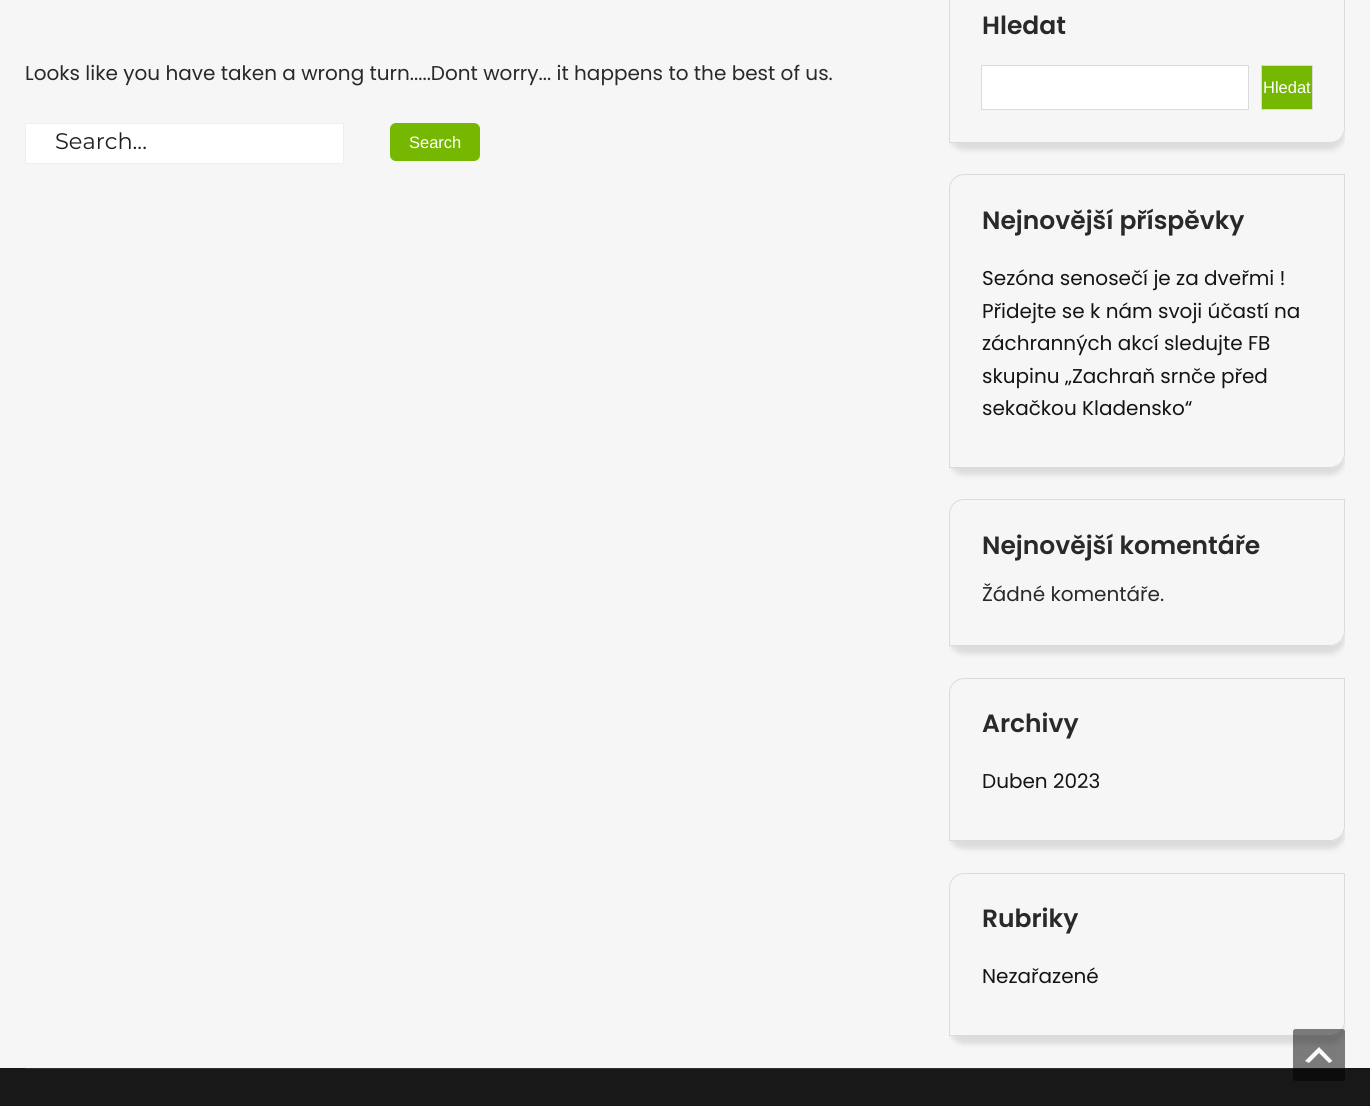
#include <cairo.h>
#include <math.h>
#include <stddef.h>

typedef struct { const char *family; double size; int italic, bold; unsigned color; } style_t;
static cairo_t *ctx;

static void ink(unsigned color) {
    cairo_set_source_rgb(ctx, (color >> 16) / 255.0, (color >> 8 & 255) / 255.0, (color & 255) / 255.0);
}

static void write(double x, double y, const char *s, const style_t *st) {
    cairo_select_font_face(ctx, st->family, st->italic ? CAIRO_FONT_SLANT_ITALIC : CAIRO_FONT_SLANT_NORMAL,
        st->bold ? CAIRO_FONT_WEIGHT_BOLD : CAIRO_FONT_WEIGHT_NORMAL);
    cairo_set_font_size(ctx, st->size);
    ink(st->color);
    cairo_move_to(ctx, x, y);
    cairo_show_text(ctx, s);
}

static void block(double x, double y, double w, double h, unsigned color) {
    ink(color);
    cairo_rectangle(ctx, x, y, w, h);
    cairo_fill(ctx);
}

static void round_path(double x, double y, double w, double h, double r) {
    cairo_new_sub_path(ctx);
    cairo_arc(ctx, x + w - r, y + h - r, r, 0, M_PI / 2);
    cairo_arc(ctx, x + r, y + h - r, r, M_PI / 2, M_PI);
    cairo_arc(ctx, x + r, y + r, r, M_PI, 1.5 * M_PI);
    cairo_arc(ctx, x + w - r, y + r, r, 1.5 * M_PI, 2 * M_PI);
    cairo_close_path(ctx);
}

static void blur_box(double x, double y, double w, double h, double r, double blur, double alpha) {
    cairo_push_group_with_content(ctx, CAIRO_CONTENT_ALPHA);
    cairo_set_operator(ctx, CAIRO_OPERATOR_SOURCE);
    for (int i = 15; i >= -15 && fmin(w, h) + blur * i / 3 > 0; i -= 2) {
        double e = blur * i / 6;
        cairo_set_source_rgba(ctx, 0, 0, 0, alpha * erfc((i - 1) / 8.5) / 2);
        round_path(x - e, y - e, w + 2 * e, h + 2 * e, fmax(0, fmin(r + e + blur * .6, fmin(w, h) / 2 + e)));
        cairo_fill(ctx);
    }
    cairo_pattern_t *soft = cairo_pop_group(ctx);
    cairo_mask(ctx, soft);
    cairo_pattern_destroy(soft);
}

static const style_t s1 = {"Poppins", 20, 0, 0, 0x292929};
static const style_t s2 = {"Montserrat", 22.5, 0, 0, 0x1e1e1e};
static const style_t s3 = {"Liberation Sans", 16.5, 0, 0, 0xffffff};
static const style_t s4 = {"Poppins SemiBold", 25, 0, 0, 0x292929};
static const style_t s5 = {"Poppins", 20, 0, 0, 0x141414};

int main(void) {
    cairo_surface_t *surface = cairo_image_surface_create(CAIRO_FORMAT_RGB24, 1370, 1106);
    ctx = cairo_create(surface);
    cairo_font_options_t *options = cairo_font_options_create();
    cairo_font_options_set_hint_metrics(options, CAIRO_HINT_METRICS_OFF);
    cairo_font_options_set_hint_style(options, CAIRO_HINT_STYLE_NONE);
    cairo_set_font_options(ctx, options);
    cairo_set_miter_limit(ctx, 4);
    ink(0xf6f6f6);
    cairo_paint(ctx);
    write(25, 80, "Looks like you have taken a wrong turn.....Dont worry... it happens to the best of us.", &s1);
    ink(0xffffff);
    cairo_rectangle(ctx, 25.5, 123.5, 318, 40);
    cairo_fill_preserve(ctx);
    ink(0xeeeeee);
    cairo_set_line_width(ctx, 1);
    cairo_stroke(ctx);
    write(55, 149, "Search...", &s2);
    ink(0x76b801);
    round_path(390, 123, 90, 38, 6);
    cairo_fill(ctx);
    write(409, 148, "Search", &s3);
    cairo_save(ctx);
    cairo_rectangle(ctx, 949, 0, 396, 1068);
    cairo_clip(ctx);
    cairo_set_fill_rule(ctx, CAIRO_FILL_RULE_EVEN_ODD);
    cairo_new_path(ctx);
    cairo_move_to(ctx, 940, 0);
    cairo_line_to(ctx, 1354, 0);
    cairo_line_to(ctx, 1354, 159);
    cairo_line_to(ctx, 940, 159);
    cairo_close_path(ctx);
    cairo_move_to(ctx, 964, -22);
    cairo_line_to(ctx, 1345, -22);
    cairo_line_to(ctx, 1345, 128);
    cairo_curve_to(ctx, 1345, 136.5, 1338.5, 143, 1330, 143);
    cairo_line_to(ctx, 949, 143);
    cairo_line_to(ctx, 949, -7);
    cairo_curve_to(ctx, 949, -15.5, 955.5, -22, 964, -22);
    cairo_close_path(ctx);
    cairo_clip(ctx);
    ink(0xdcdcdc);
    blur_box(949, -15, 396, 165, 15, 2.5, 1);
    cairo_restore(ctx);
    cairo_new_path(ctx);
    cairo_move_to(ctx, 964, -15.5);
    cairo_line_to(ctx, 1344.5, -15.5);
    cairo_line_to(ctx, 1344.5, 128);
    cairo_curve_to(ctx, 1344.5, 136, 1338, 142.5, 1330, 142.5);
    cairo_line_to(ctx, 949.5, 142.5);
    cairo_line_to(ctx, 949.5, -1);
    cairo_curve_to(ctx, 949.5, -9, 956, -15.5, 964, -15.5);
    cairo_close_path(ctx);
    ink(0xdbdbdb);
    cairo_stroke(ctx);
    write(982, 34, "Hledat", &s4);
    ink(0xffffff);
    cairo_rectangle(ctx, 981.5, 65.5, 267, 44);
    cairo_fill_preserve(ctx);
    ink(0xdbdbdb);
    cairo_stroke(ctx);
    ink(0x76b801);
    cairo_rectangle(ctx, 1261.5, 65.5, 51, 44);
    cairo_fill_preserve(ctx);
    ink(0xdbdbdb);
    cairo_stroke(ctx);
    write(1263, 93, "Hledat", &s3);
    cairo_save(ctx);
    cairo_rectangle(ctx, 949, 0, 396, 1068);
    cairo_clip(ctx);
    cairo_set_fill_rule(ctx, CAIRO_FILL_RULE_EVEN_ODD);
    cairo_new_path(ctx);
    cairo_move_to(ctx, 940, 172);
    cairo_line_to(ctx, 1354, 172);
    cairo_line_to(ctx, 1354, 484);
    cairo_line_to(ctx, 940, 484);
    cairo_close_path(ctx);
    cairo_move_to(ctx, 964, 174);
    cairo_line_to(ctx, 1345, 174);
    cairo_line_to(ctx, 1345, 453);
    cairo_curve_to(ctx, 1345, 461.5, 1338.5, 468, 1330, 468);
    cairo_line_to(ctx, 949, 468);
    cairo_line_to(ctx, 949, 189);
    cairo_curve_to(ctx, 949, 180.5, 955.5, 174, 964, 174);
    cairo_close_path(ctx);
    cairo_clip(ctx);
    ink(0xdcdcdc);
    blur_box(949, 181, 396, 294, 15, 2.5, 1);
    cairo_restore(ctx);
    cairo_new_path(ctx);
    cairo_move_to(ctx, 964, 174.5);
    cairo_line_to(ctx, 1344.5, 174.5);
    cairo_line_to(ctx, 1344.5, 453);
    cairo_curve_to(ctx, 1344.5, 461, 1338, 467.5, 1330, 467.5);
    cairo_line_to(ctx, 949.5, 467.5);
    cairo_line_to(ctx, 949.5, 189);
    cairo_curve_to(ctx, 949.5, 181, 956, 174.5, 964, 174.5);
    cairo_close_path(ctx);
    ink(0xdbdbdb);
    cairo_stroke(ctx);
    write(982, 229, "Nejnovější příspěvky", &s4);
    write(982, 285, "Sezóna senosečí je za dveřmi !", &s5);
    write(982, 318, "Přidejte se k nám svoji účastí na", &s5);
    write(982, 350, "záchranných akcí sledujte FB", &s5);
    write(982, 383, "skupinu „Zachraň srnče před", &s5);
    write(982, 415, "sekačkou Kladensko“", &s5);
    cairo_save(ctx);
    cairo_rectangle(ctx, 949, 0, 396, 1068);
    cairo_clip(ctx);
    cairo_set_fill_rule(ctx, CAIRO_FILL_RULE_EVEN_ODD);
    cairo_new_path(ctx);
    cairo_move_to(ctx, 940, 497);
    cairo_line_to(ctx, 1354, 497);
    cairo_line_to(ctx, 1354, 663);
    cairo_line_to(ctx, 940, 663);
    cairo_close_path(ctx);
    cairo_move_to(ctx, 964, 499);
    cairo_line_to(ctx, 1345, 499);
    cairo_line_to(ctx, 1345, 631);
    cairo_curve_to(ctx, 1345, 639.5, 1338.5, 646, 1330, 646);
    cairo_line_to(ctx, 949, 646);
    cairo_line_to(ctx, 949, 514);
    cairo_curve_to(ctx, 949, 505.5, 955.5, 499, 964, 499);
    cairo_close_path(ctx);
    cairo_clip(ctx);
    ink(0xdcdcdc);
    blur_box(949, 506, 396, 148, 15, 2.5, 1);
    cairo_restore(ctx);
    cairo_new_path(ctx);
    cairo_move_to(ctx, 964, 499.5);
    cairo_line_to(ctx, 1344.5, 499.5);
    cairo_line_to(ctx, 1344.5, 631);
    cairo_curve_to(ctx, 1344.5, 639, 1338, 645.5, 1330, 645.5);
    cairo_line_to(ctx, 949.5, 645.5);
    cairo_line_to(ctx, 949.5, 514);
    cairo_curve_to(ctx, 949.5, 506, 956, 499.5, 964, 499.5);
    cairo_close_path(ctx);
    ink(0xdbdbdb);
    cairo_stroke(ctx);
    write(982, 554, "Nejnovější komentáře", &s4);
    write(982, 601, "Žádné komentáře.", &s1);
    cairo_save(ctx);
    cairo_rectangle(ctx, 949, 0, 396, 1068);
    cairo_clip(ctx);
    cairo_set_fill_rule(ctx, CAIRO_FILL_RULE_EVEN_ODD);
    cairo_new_path(ctx);
    cairo_move_to(ctx, 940, 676);
    cairo_line_to(ctx, 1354, 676);
    cairo_line_to(ctx, 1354, 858);
    cairo_line_to(ctx, 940, 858);
    cairo_close_path(ctx);
    cairo_move_to(ctx, 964, 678);
    cairo_line_to(ctx, 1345, 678);
    cairo_line_to(ctx, 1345, 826);
    cairo_curve_to(ctx, 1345, 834.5, 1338.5, 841, 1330, 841);
    cairo_line_to(ctx, 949, 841);
    cairo_line_to(ctx, 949, 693);
    cairo_curve_to(ctx, 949, 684.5, 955.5, 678, 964, 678);
    cairo_close_path(ctx);
    cairo_clip(ctx);
    ink(0xdcdcdc);
    blur_box(949, 685, 396, 164, 15, 2.5, 1);
    cairo_restore(ctx);
    cairo_new_path(ctx);
    cairo_move_to(ctx, 964, 678.5);
    cairo_line_to(ctx, 1344.5, 678.5);
    cairo_line_to(ctx, 1344.5, 826);
    cairo_curve_to(ctx, 1344.5, 834, 1338, 840.5, 1330, 840.5);
    cairo_line_to(ctx, 949.5, 840.5);
    cairo_line_to(ctx, 949.5, 693);
    cairo_curve_to(ctx, 949.5, 685, 956, 678.5, 964, 678.5);
    cairo_close_path(ctx);
    ink(0xdbdbdb);
    cairo_stroke(ctx);
    write(982, 732, "Archivy", &s4);
    write(982, 788, "Duben 2023", &s5);
    cairo_save(ctx);
    cairo_rectangle(ctx, 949, 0, 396, 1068);
    cairo_clip(ctx);
    cairo_set_fill_rule(ctx, CAIRO_FILL_RULE_EVEN_ODD);
    cairo_new_path(ctx);
    cairo_move_to(ctx, 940, 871);
    cairo_line_to(ctx, 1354, 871);
    cairo_line_to(ctx, 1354, 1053);
    cairo_line_to(ctx, 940, 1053);
    cairo_close_path(ctx);
    cairo_move_to(ctx, 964, 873);
    cairo_line_to(ctx, 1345, 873);
    cairo_line_to(ctx, 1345, 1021);
    cairo_curve_to(ctx, 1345, 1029.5, 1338.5, 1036, 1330, 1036);
    cairo_line_to(ctx, 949, 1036);
    cairo_line_to(ctx, 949, 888);
    cairo_curve_to(ctx, 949, 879.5, 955.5, 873, 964, 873);
    cairo_close_path(ctx);
    cairo_clip(ctx);
    ink(0xdcdcdc);
    blur_box(949, 880, 396, 164, 15, 2.5, 1);
    cairo_restore(ctx);
    cairo_new_path(ctx);
    cairo_move_to(ctx, 964, 873.5);
    cairo_line_to(ctx, 1344.5, 873.5);
    cairo_line_to(ctx, 1344.5, 1021);
    cairo_curve_to(ctx, 1344.5, 1029, 1338, 1035.5, 1330, 1035.5);
    cairo_line_to(ctx, 949.5, 1035.5);
    cairo_line_to(ctx, 949.5, 888);
    cairo_curve_to(ctx, 949.5, 880, 956, 873.5, 964, 873.5);
    cairo_close_path(ctx);
    ink(0xdbdbdb);
    cairo_stroke(ctx);
    write(982, 927, "Rubriky", &s4);
    write(982, 983, "Nezařazené", &s5);
    block(0, 1068, 1370, 38, 0x181818);
    block(25, 1068, 1320, 1, 0x2f2f2f);
    cairo_set_source_rgba(ctx, 0, 0, 0, 0.5);
    round_path(1293, 1029, 52, 52, 2.5);
    cairo_fill(ctx);
    ink(0xfafafa);
    cairo_new_path(ctx);
    cairo_move_to(ctx, 1329, 1063);
    cairo_line_to(ctx, 1319, 1053);
    cairo_line_to(ctx, 1309, 1063);
    cairo_line_to(ctx, 1305, 1061);
    cairo_line_to(ctx, 1319, 1047);
    cairo_line_to(ctx, 1332.5, 1061);
    cairo_close_path(ctx);
    cairo_fill(ctx);
    cairo_surface_write_to_png(surface, "screenshot.png");
    cairo_font_options_destroy(options);
    cairo_destroy(ctx);
    cairo_surface_destroy(surface);
    return 0;
}
